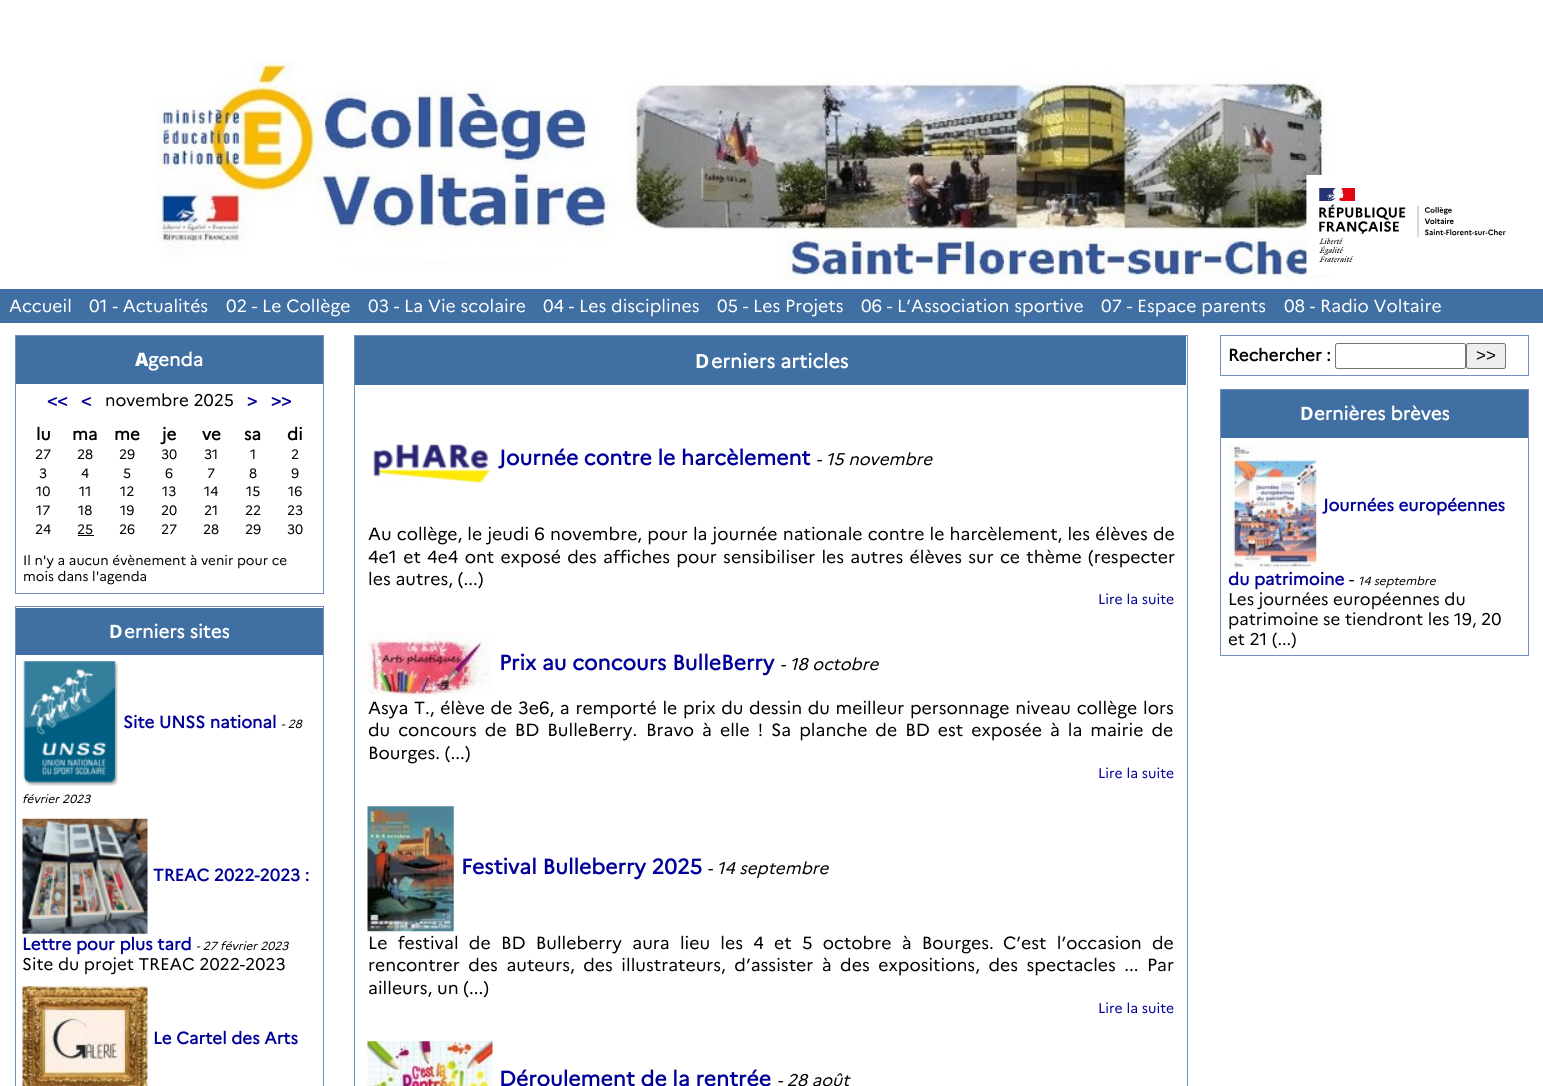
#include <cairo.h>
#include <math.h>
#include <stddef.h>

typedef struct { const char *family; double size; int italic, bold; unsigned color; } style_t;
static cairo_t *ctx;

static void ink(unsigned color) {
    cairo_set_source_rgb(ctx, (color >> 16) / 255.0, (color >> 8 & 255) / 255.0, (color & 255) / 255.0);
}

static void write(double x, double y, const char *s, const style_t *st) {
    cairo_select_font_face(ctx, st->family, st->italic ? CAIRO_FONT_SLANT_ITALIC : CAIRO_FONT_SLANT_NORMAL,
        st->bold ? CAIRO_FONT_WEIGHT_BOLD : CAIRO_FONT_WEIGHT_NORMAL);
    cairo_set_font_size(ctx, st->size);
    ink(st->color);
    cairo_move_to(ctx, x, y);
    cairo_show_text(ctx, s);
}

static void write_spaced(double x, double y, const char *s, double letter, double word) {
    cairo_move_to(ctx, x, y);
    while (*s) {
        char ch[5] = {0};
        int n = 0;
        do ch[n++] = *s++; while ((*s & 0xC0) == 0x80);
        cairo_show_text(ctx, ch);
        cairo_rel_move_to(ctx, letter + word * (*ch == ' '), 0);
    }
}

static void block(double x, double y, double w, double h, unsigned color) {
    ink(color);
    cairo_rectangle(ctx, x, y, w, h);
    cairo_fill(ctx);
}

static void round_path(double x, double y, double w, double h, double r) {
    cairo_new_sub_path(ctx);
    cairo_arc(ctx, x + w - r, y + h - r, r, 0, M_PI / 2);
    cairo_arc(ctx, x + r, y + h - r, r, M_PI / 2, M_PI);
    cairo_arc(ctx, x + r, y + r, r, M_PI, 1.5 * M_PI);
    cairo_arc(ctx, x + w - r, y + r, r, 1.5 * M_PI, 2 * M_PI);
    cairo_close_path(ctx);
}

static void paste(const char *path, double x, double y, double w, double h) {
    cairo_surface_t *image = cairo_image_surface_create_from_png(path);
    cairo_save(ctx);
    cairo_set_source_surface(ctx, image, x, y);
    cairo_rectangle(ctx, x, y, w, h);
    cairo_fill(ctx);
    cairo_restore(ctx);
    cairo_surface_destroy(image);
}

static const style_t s1 = {"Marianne", 17.6, 0, 0, 0xffffff};
static const style_t s2 = {"Noto Sans Black", 18.5, 0, 0, 0xffffff};
static const style_t s3 = {"Marianne", 18.5, 0, 1, 0xffffff};
static const style_t s4 = {"Marianne", 16.9, 0, 1, 0x000099};
static const style_t s5 = {"Marianne", 16.9, 0, 0, 0x000000};
static const style_t s6 = {"Marianne", 16.9, 0, 1, 0x000000};
static const style_t s7 = {"Marianne", 13.5, 0, 0, 0x000000};
static const style_t s8 = {"Noto Sans", 18.5, 0, 1, 0xffffff};
static const style_t s9 = {"Marianne", 11.75, 1, 0, 0x000000};
static const style_t s10 = {"Noto Sans", 19.5, 0, 1, 0xffffff};
static const style_t s11 = {"Marianne", 19.5, 0, 1, 0xffffff};
static const style_t s12 = {"Marianne", 21.1, 0, 1, 0x000099};
static const style_t s13 = {"Marianne", 16.9, 1, 0, 0x000000};
static const style_t s14 = {"Marianne", 17.6, 0, 0, 0x000000};
static const style_t s15 = {"Marianne", 14, 0, 0, 0x000099};
static const style_t s16 = {"Liberation Sans", 17, 0, 0, 0x000000};

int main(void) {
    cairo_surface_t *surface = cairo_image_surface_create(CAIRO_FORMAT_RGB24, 1543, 1086);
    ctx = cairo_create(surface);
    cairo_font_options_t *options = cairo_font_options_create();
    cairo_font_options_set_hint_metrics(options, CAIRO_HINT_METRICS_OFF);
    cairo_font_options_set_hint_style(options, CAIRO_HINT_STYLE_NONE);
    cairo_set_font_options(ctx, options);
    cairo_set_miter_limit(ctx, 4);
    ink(0xffffff);
    cairo_paint(ctx);
    paste("pic1.png", 156, 59, 1181, 222);
    paste("pic2.png", 1306, 175, 200, 100);
    block(0, 289, 1543, 34, 0x406fa4);
    write(9, 312, "Accueil", &s1);
    write(89, 312, "01 - Actualités", &s1);
    write(226, 312, "02 - Le Collège", &s1);
    write(368, 312, "03 - La Vie scolaire", &s1);
    write(543, 312, "04 - Les disciplines", &s1);
    write(717, 312, "05 - Les Projets", &s1);
    write(861, 312, "06 - L’Association sportive", &s1);
    write(1101, 312, "07 - Espace parents", &s1);
    write(1284, 312, "08 - Radio Voltaire", &s1);
    cairo_rectangle(ctx, 15.5, 335.5, 308, 258);
    ink(0x6f8fbe);
    cairo_set_line_width(ctx, 1);
    cairo_stroke(ctx);
    block(16, 336, 307, 48, 0x406fa4);
    write(135, 366, "A", &s2);
    write(148, 366, "genda", &s3);
    write(47, 406, "<<", &s4);
    write(81, 406, "<", &s4);
    write(105, 406, "novembre 2025", &s5);
    write(247, 406, ">", &s4);
    write(271, 406, ">>", &s4);
    write(36, 440, "lu", &s6);
    write(72, 440, "ma", &s6);
    write(114, 440, "me", &s6);
    write(162, 440, "je", &s6);
    write(202, 440, "ve", &s6);
    write(244, 440, "sa", &s6);
    write(287, 440, "di", &s6);
    write(35, 459, "27", &s7);
    write(77, 459, "28", &s7);
    write(119, 459, "29", &s7);
    write(161, 459, "30", &s7);
    write(204, 459, "31", &s7);
    write(250, 459, "1", &s7);
    write(291, 459, "2", &s7);
    write(39, 478, "3", &s7);
    write(81, 478, "4", &s7);
    write(123, 478, "5", &s7);
    write(165, 478, "6", &s7);
    write(207, 478, "7", &s7);
    write(249, 478, "8", &s7);
    write(291, 478, "9", &s7);
    write(36, 496, "10", &s7);
    write(79, 496, "11", &s7);
    write(120, 496, "12", &s7);
    write(162, 496, "13", &s7);
    write(204, 496, "14", &s7);
    write(246, 496, "15", &s7);
    write(288, 496, "16", &s7);
    write(36, 515, "17", &s7);
    write(78, 515, "18", &s7);
    write(120, 515, "19", &s7);
    write(161, 515, "20", &s7);
    write(204, 515, "21", &s7);
    write(245, 515, "22", &s7);
    write(287, 515, "23", &s7);
    write(35, 534, "24", &s7);
    write(77, 534, "25", &s7);
    block(78, 535, 16, 1, 0x000000);
    write(119, 534, "26", &s7);
    write(161, 534, "27", &s7);
    write(203, 534, "28", &s7);
    write(245, 534, "29", &s7);
    write(287, 534, "30", &s7);
    write(23, 565, "Il n'y a aucun évènement à venir pour ce", &s7);
    write(23, 581, "mois dans l'agenda", &s7);
    cairo_rectangle(ctx, 15.5, 606.5, 308, 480);
    ink(0x6f8fbe);
    cairo_stroke(ctx);
    block(16, 608, 307, 47, 0x406fa4);
    write(109, 638, "D", &s8);
    write(124, 638, "erniers sites", &s3);
    paste("pic3.png", 23, 661, 95, 125);
    write(123, 728, "Site UNSS national", &s4);
    write(281, 728, "- 28", &s9);
    write(22, 803, "février 2023", &s9);
    paste("pic4.png", 22, 818, 126, 116);
    write(153, 881, "TREAC 2022-2023 :", &s4);
    write(22, 950, "Lettre pour plus tard", &s4);
    write(196, 950, "- 27 février 2023", &s9);
    write(22, 970, "Site du projet TREAC 2022-2023", &s5);
    paste("pic5.png", 22, 986, 126, 100);
    write(153, 1044, "Le Cartel des Arts", &s4);
    cairo_rectangle(ctx, 354.5, 335.5, 833, 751);
    ink(0x6f8fbe);
    cairo_stroke(ctx);
    block(355, 336, 831, 49, 0x406fa4);
    write(695, 368, "D", &s10);
    write(711, 368, "erniers articles", &s11);
    paste("pic6.png", 373, 443, 118, 41);
    write(499, 465, "Journée contre le harcèlement", &s12);
    write(816, 465, "- 15 novembre", &s13);
    cairo_select_font_face(ctx, "Marianne", CAIRO_FONT_SLANT_NORMAL, CAIRO_FONT_WEIGHT_NORMAL);
    cairo_set_font_size(ctx, 17.6);
    write_spaced(368, 540, "Au collège, le jeudi 6 novembre, pour la journée nationale contre le harcèlement, les élèves de", 0, 0.4);
    write_spaced(368, 563, "4e1 et 4e4 ont exposé des affiches pour sensibiliser les autres élèves sur ce thème (respecter", 0, 1.5);
    write(368, 585, "les autres, (...)", &s14);
    write(1098, 604, "Lire la suite", &s15);
    paste("pic7.png", 367, 632, 124, 65);
    write(499, 670, "Prix au concours BulleBerry", &s12);
    write(780, 670, "- 18 octobre", &s13);
    cairo_select_font_face(ctx, "Marianne", CAIRO_FONT_SLANT_NORMAL, CAIRO_FONT_WEIGHT_NORMAL);
    cairo_set_font_size(ctx, 17.6);
    write_spaced(368, 714, "Asya T., élève de 3e6, a remporté le prix du dessin du meilleur personnage niveau collège lors", 0, 0.9);
    write_spaced(368, 736, "du concours de BD BulleBerry.", 0, 3.25);
    write_spaced(646, 736, "Bravo à elle !", 0, 3.25);
    write_spaced(771, 736, "Sa planche de BD est exposée à la mairie de", 0, 3.25);
    write(368, 759, "Bourges. (...)", &s14);
    write(1098, 778, "Lire la suite", &s15);
    paste("pic8.png", 367, 806, 87, 126);
    write(461, 874, "Festival Bulleberry 2025", &s12);
    write(707, 874, "- 14 septembre", &s13);
    cairo_select_font_face(ctx, "Marianne", CAIRO_FONT_SLANT_NORMAL, CAIRO_FONT_WEIGHT_NORMAL);
    cairo_set_font_size(ctx, 17.6);
    write_spaced(368, 949, "Le festival de BD Bulleberry aura lieu les 4 et 5 octobre à Bourges.", 0, 5.5);
    write_spaced(1003, 949, "C’est l’occasion de", 0, 5.5);
    write_spaced(368, 971, "rencontrer des auteurs, des illustrateurs, d’assister à des expositions, des spectacles ...", 0, 3.75);
    write(1147, 971, "Par", &s14);
    write(368, 994, "ailleurs, un (...)", &s14);
    write(1098, 1013, "Lire la suite", &s15);
    paste("pic9.png", 367, 1041, 126, 45);
    write(499, 1086, "Déroulement de la rentrée", &s12);
    write(777, 1086, "- 28 août", &s13);
    cairo_rectangle(ctx, 1220.5, 335.5, 308, 40);
    ink(0x6f8fbe);
    cairo_stroke(ctx);
    write(1228, 361, "Rechercher :", &s6);
    round_path(1335.5, 343.5, 130, 25, 2);
    ink(0x767676);
    cairo_stroke(ctx);
    ink(0xefefef);
    round_path(1466.5, 343.5, 39, 25, 2);
    cairo_fill_preserve(ctx);
    ink(0x767676);
    cairo_stroke(ctx);
    write(1476, 361, ">>", &s16);
    cairo_rectangle(ctx, 1220.5, 389.5, 308, 266);
    ink(0x6f8fbe);
    cairo_stroke(ctx);
    block(1221, 390, 307, 48, 0x406fa4);
    write(1300, 420, "D", &s8);
    write(1314, 420, "ernières brèves", &s3);
    paste("pic10.png", 1227, 443, 90, 126);
    write(1323, 511, "Journées européennes", &s4);
    write(1228, 585, "du patrimoine", &s4);
    write(1349, 585, "-", &s5);
    write(1358, 585, "14 septembre", &s9);
    write(1228, 605, "Les journées européennes du", &s5);
    write(1228, 625, "patrimoine se tiendront les 19, 20", &s5);
    write(1228, 645, "et 21 (...)", &s5);
    cairo_surface_write_to_png(surface, "screenshot.png");
    cairo_font_options_destroy(options);
    cairo_destroy(ctx);
    cairo_surface_destroy(surface);
    return 0;
}
